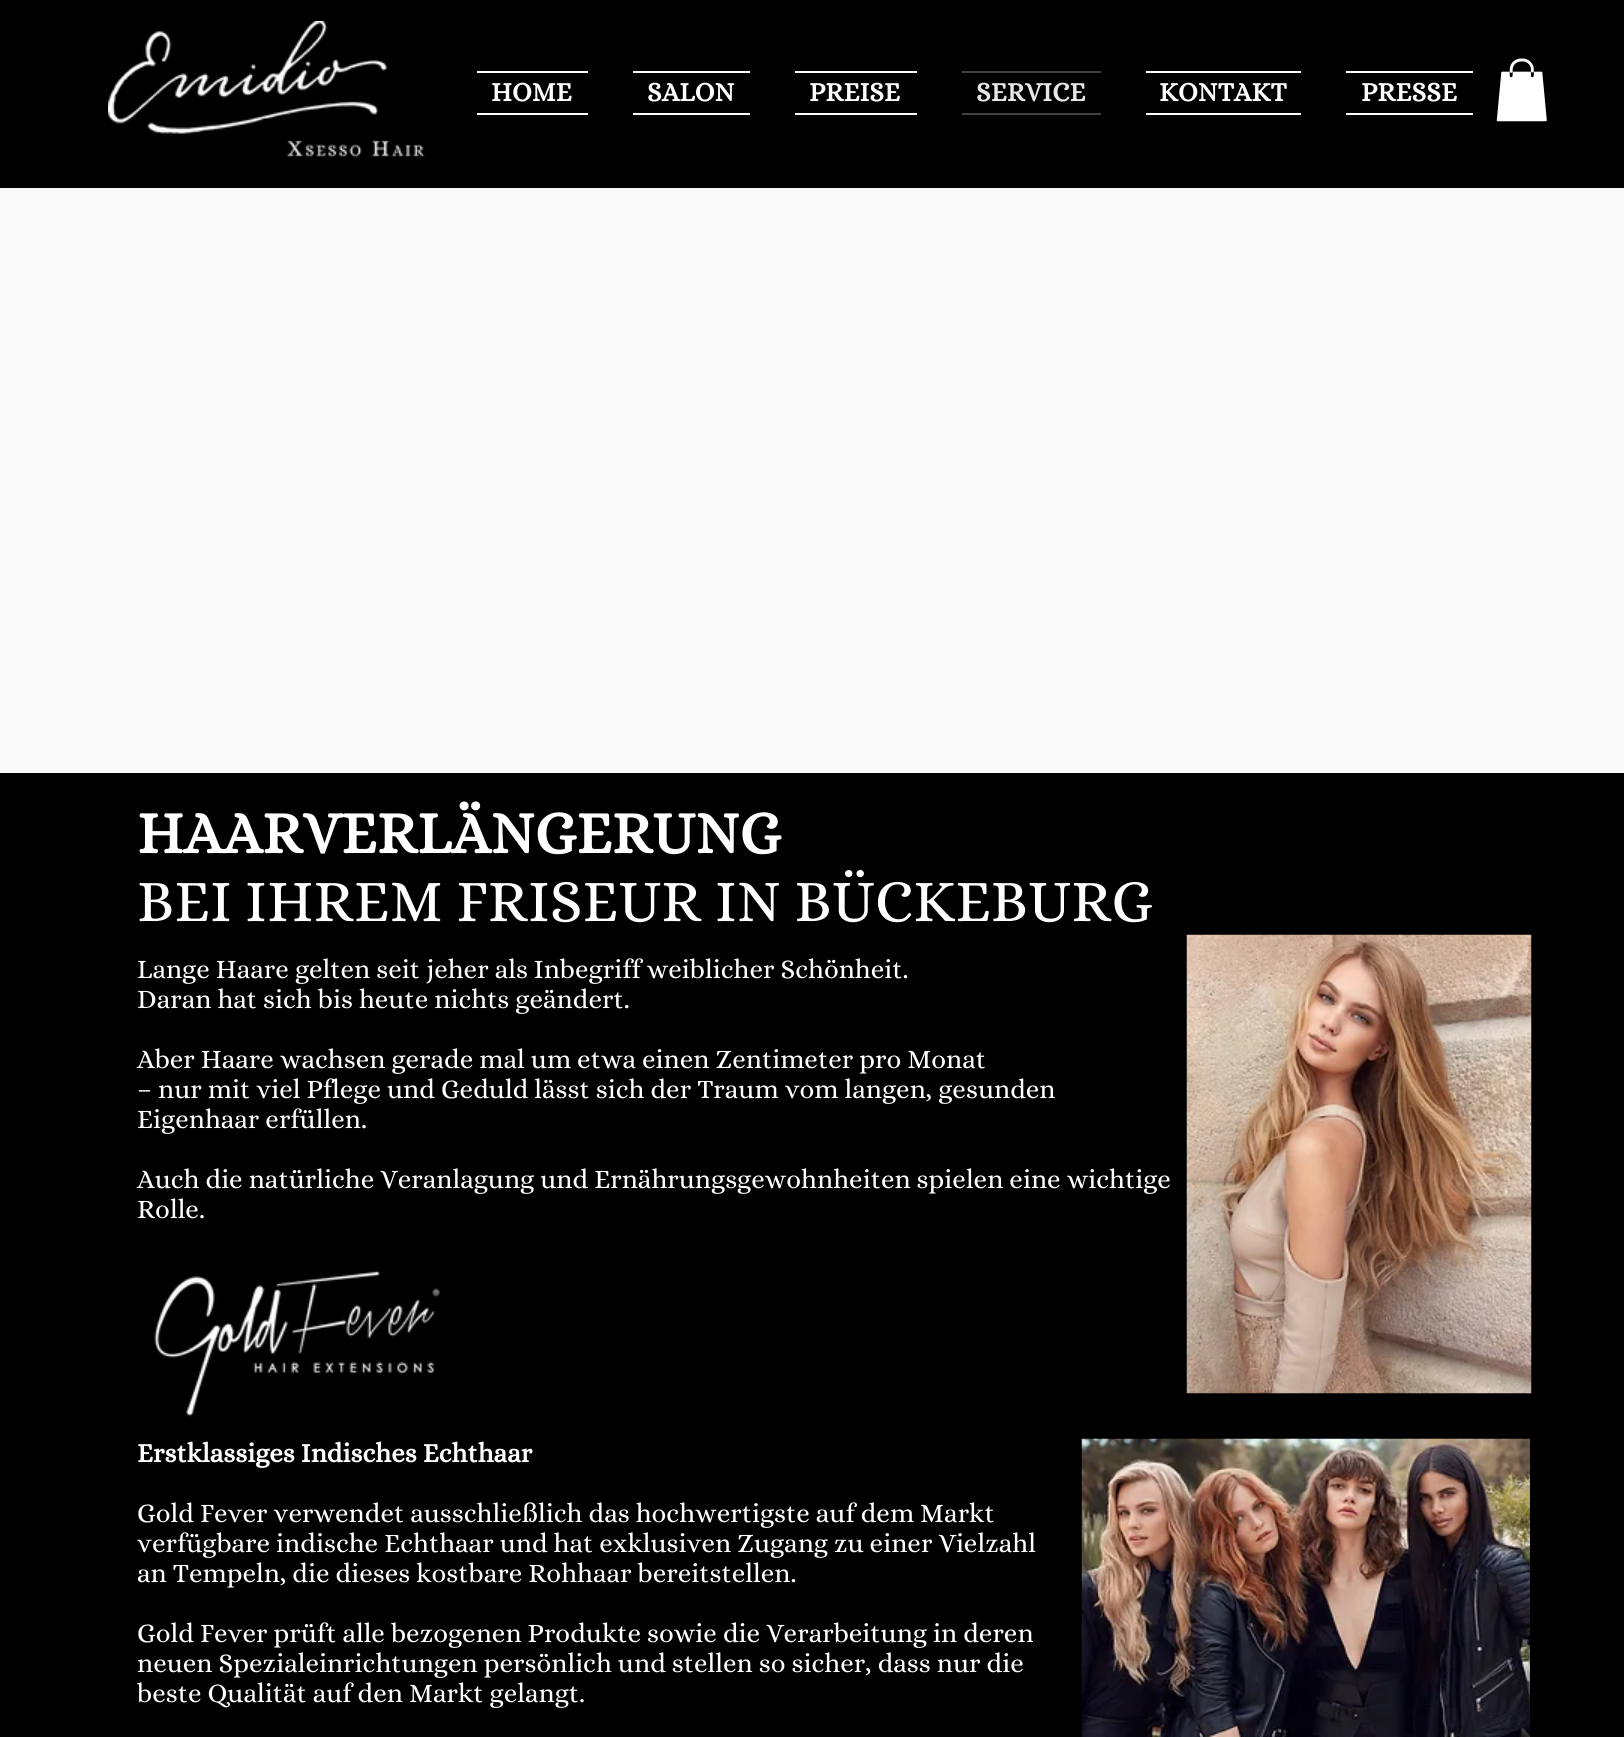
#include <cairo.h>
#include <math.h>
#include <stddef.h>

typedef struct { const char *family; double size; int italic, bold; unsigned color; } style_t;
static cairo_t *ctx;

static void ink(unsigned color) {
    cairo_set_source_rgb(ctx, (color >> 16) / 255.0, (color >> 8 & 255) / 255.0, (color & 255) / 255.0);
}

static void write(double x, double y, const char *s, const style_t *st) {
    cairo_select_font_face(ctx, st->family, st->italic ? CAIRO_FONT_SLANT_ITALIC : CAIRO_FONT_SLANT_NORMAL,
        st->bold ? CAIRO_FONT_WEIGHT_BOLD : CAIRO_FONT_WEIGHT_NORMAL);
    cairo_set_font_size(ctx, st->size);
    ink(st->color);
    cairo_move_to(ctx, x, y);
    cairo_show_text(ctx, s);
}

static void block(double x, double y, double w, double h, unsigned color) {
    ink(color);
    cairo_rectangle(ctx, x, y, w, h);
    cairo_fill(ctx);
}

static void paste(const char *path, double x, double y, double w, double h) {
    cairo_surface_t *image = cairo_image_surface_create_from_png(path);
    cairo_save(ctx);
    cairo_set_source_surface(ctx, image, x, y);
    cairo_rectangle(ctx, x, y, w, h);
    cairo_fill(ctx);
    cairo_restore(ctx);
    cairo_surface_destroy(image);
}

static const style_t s1 = {"Alice", 27, 0, 1, 0xffffff};
static const style_t s2 = {"Alice", 27, 0, 1, 0xe8e6e6};
static const style_t s3 = {"Alice", 60, 0, 1, 0xffffff};
static const style_t s4 = {"Alice", 60, 0, 0, 0xffffff};
static const style_t s5 = {"Alice", 27, 0, 0, 0xffffff};

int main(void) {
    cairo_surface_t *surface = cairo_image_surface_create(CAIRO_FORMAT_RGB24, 1624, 1737);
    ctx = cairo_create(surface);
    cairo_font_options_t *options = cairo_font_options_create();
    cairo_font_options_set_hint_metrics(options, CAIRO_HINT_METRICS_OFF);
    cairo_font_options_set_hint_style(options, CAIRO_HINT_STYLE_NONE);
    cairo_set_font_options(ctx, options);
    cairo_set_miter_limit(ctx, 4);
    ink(0xfafafa);
    cairo_paint(ctx);
    block(0, 0, 1624, 188, 0x000000);
    paste("pic1.png", 108, 21, 317, 137);
    block(477, 71, 111, 2, 0xffffff);
    block(477, 113, 111, 2, 0xffffff);
    write(491, 101, "HOME", &s1);
    block(633, 71, 117, 2, 0xffffff);
    block(633, 113, 117, 2, 0xffffff);
    write(647, 101, "SALON", &s1);
    block(795, 71, 122, 2, 0xffffff);
    block(795, 113, 122, 2, 0xffffff);
    write(809, 101, "PREISE", &s1);
    block(962, 71, 139, 2, 0x414141);
    block(962, 113, 139, 2, 0x414141);
    write(976, 101, "SERVICE", &s2);
    block(1146, 71, 155, 2, 0xffffff);
    block(1146, 113, 155, 2, 0xffffff);
    write(1159, 101, "KONTAKT", &s1);
    block(1346, 71, 127, 2, 0xffffff);
    block(1346, 113, 127, 2, 0xffffff);
    write(1361, 101, "PRESSE", &s1);
    paste("pic2.png", 1496, 58, 51, 64);
    block(0, 773, 1624, 964, 0x000000);
    write(137, 853, "HAARVERLÄNGERUNG", &s3);
    write(137, 921, "BEI IHREM FRISEUR IN BÜCKEBURG", &s4);
    write(137, 978, "Lange Haare gelten seit jeher als Inbegriff weiblicher Schönheit.", &s5);
    write(137, 1008, "Daran hat sich bis heute nichts geändert.", &s5);
    write(137, 1068, "Aber Haare wachsen gerade mal um etwa einen Zentimeter pro Monat", &s5);
    write(137, 1098, "– nur mit viel Pflege und Geduld lässt sich der Traum vom langen, gesunden", &s5);
    write(137, 1128, "Eigenhaar erfüllen.", &s5);
    write(137, 1188, "Auch die natürliche Veranlagung und Ernährungsgewohnheiten spielen eine wichtige", &s5);
    write(137, 1218, "Rolle.", &s5);
    paste("pic3.png", 1186, 934, 346, 460);
    paste("pic4.png", 154, 1270, 286, 147);
    write(137, 1462, "Erstklassiges Indisches Echthaar", &s1);
    write(137, 1522, "Gold Fever verwendet ausschließlich das hochwertigste auf dem Markt", &s5);
    write(137, 1552, "verfügbare indische Echthaar und hat exklusiven Zugang zu einer Vielzahl", &s5);
    write(137, 1582, "an Tempeln, die dieses kostbare Rohhaar bereitstellen.", &s5);
    write(137, 1642, "Gold Fever prüft alle bezogenen Produkte sowie die Verarbeitung in deren", &s5);
    write(137, 1672, "neuen Spezialeinrichtungen persönlich und stellen so sicher, dass nur die", &s5);
    write(137, 1702, "beste Qualität auf den Markt gelangt.", &s5);
    paste("pic5.png", 1081, 1438, 449, 299);
    cairo_surface_write_to_png(surface, "screenshot.png");
    cairo_font_options_destroy(options);
    cairo_destroy(ctx);
    cairo_surface_destroy(surface);
    return 0;
}
